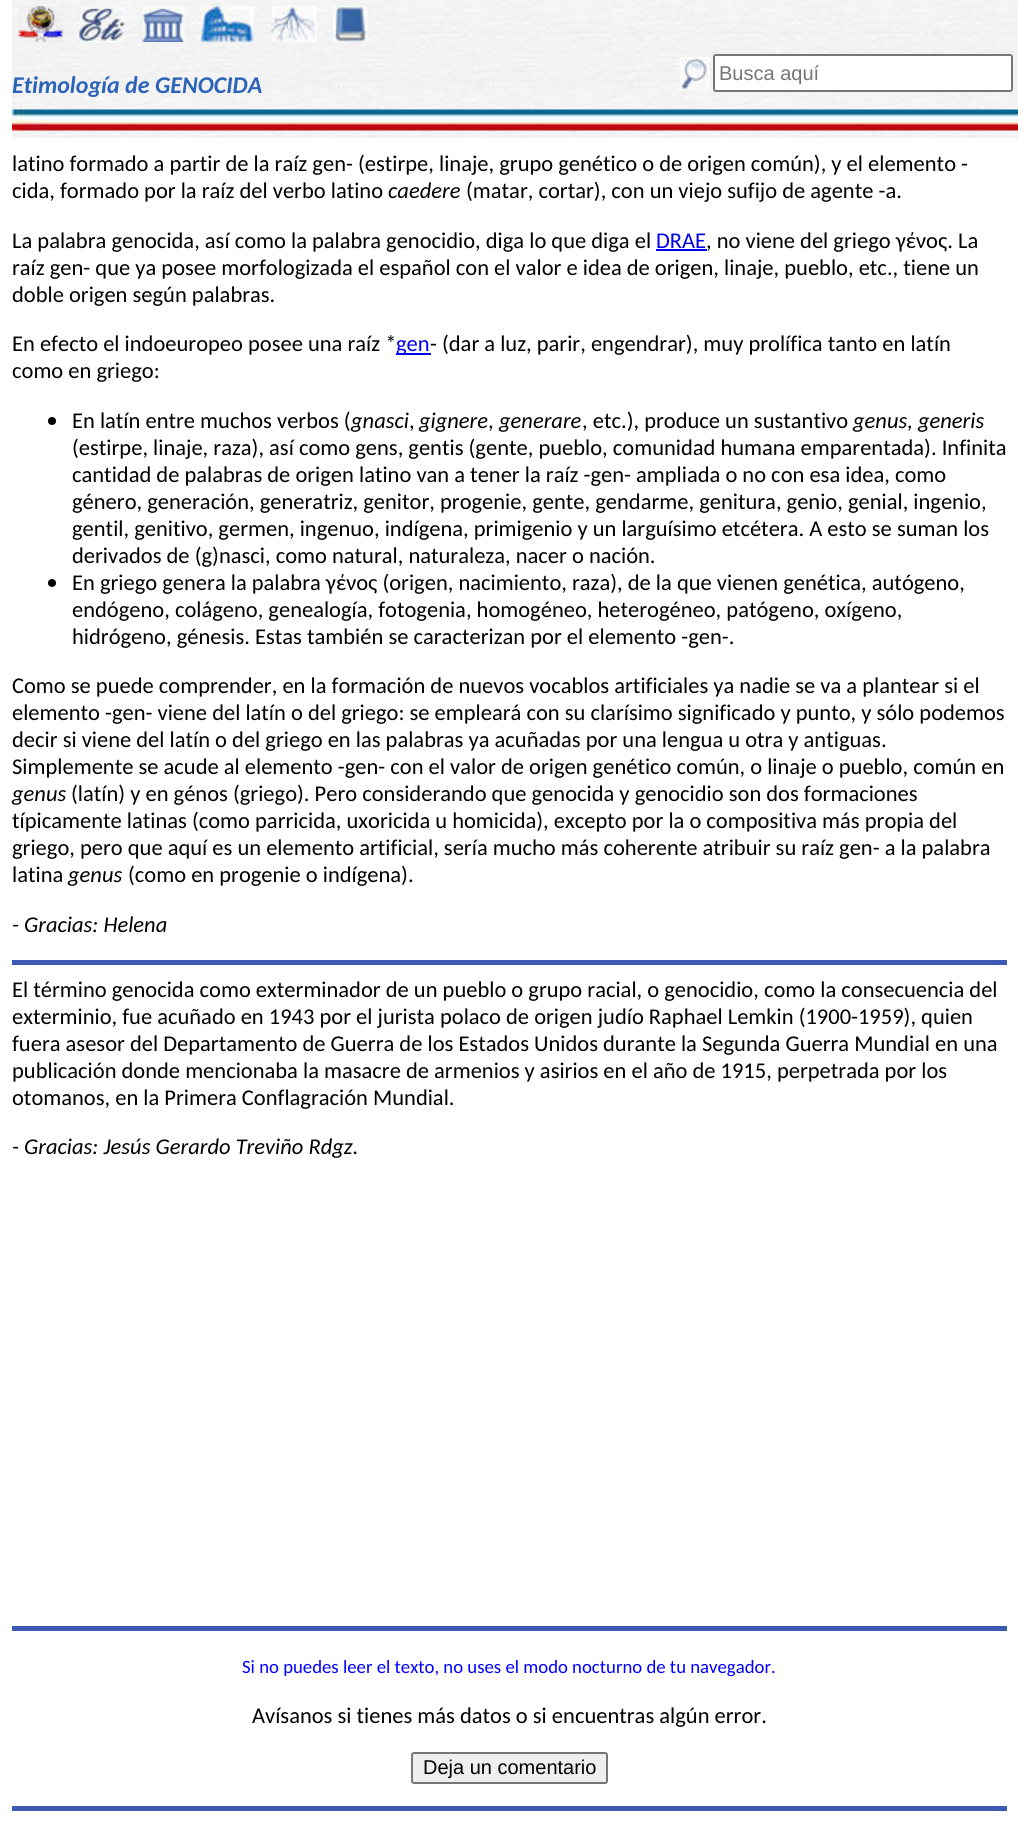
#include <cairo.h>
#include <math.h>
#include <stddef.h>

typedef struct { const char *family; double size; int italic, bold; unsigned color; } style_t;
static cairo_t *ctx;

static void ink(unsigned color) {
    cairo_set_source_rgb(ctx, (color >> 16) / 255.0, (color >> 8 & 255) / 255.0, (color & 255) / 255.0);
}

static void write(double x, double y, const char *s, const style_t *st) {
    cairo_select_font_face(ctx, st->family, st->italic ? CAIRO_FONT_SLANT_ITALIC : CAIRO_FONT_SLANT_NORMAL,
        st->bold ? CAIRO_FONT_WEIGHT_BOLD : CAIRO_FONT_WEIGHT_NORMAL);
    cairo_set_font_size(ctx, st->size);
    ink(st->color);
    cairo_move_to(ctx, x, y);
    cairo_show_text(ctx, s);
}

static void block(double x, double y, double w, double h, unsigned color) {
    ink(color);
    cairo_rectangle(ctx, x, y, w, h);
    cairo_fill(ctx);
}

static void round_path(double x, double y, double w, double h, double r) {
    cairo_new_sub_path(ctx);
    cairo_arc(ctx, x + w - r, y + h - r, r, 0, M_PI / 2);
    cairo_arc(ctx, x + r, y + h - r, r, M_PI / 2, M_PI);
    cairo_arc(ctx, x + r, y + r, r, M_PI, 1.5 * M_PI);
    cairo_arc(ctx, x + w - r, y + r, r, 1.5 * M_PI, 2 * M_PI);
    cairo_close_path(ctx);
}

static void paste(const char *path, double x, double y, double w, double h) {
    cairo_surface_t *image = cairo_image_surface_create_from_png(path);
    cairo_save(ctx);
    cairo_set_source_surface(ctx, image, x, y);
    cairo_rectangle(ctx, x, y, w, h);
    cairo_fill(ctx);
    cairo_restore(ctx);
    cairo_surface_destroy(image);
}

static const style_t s1 = {"Carlito", 24, 1, 1, 0x2a63b8};
static const style_t s2 = {"Liberation Sans", 20, 0, 0, 0x757575};
static const style_t s3 = {"Carlito", 22.5, 0, 0, 0x000000};
static const style_t s4 = {"Carlito", 22.5, 1, 0, 0x000000};
static const style_t s5 = {"Carlito", 22.5, 0, 0, 0x0000ee};
static const style_t s6 = {"Carlito", 18.75, 0, 0, 0x0000ff};
static const style_t s7 = {"Liberation Sans", 20, 0, 0, 0x000000};

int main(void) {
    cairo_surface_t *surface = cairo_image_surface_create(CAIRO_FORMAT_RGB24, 1018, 1839);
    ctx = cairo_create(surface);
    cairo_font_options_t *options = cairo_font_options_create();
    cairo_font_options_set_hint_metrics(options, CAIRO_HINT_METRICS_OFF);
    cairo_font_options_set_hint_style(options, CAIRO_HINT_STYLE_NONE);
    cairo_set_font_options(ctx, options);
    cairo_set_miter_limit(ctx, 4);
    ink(0xffffff);
    cairo_paint(ctx);
    paste("pic1.png", 12, 0, 1006, 138);
    write(12, 93, "Etimología de GENOCIDA", &s1);
    paste("pic2.png", 18, 6, 45, 36);
    paste("pic3.png", 79, 6, 46, 36);
    paste("pic4.png", 142, 6, 43, 36);
    paste("pic5.png", 201, 6, 53, 36);
    paste("pic6.png", 271, 6, 46, 36);
    paste("pic7.png", 333, 6, 35, 36);
    paste("pic8.png", 679, 57, 31, 33);
    ink(0xffffff);
    round_path(714, 55, 298, 36, 2);
    cairo_fill_preserve(ctx);
    ink(0x767676);
    cairo_stroke(ctx);
    write(719, 80, "Busca aquí", &s2);
    paste("pic9.png", 12, 109, 1006, 22);
    write(12, 171, "latino formado a partir de la raíz gen- (estirpe, linaje, grupo genético o de origen común), y el elemento -", &s3);
    write(12, 198, "cida, formado por la raíz del verbo latino", &s3);
    write(388, 198, "caedere", &s4);
    write(466, 198, "(matar, cortar), con un viejo sufijo de agente -a.", &s3);
    write(12, 248, "La palabra genocida, así como la palabra genocidio, diga lo que diga el", &s3);
    write(656, 248, "DRAE", &s5);
    block(656, 249, 51, 2, 0x0000ee);
    write(706, 248, ", no viene del griego γένος. La", &s3);
    write(12, 275, "raíz gen- que ya posee morfologizada el español con el valor e idea de origen, linaje, pueblo, etc., tiene un", &s3);
    write(12, 302, "doble origen según palabras.", &s3);
    write(12, 351, "En efecto el indoeuropeo posee una raíz *", &s3);
    block(396, 353, 35, 2, 0x0000ee);
    write(396, 351, "gen", &s5);
    write(430, 351, "- (dar a luz, parir, engendrar), muy prolífica tanto en latín", &s3);
    write(12, 378, "como en griego:", &s3);
    cairo_new_path(ctx);
    cairo_arc(ctx, 52, 421, 4, 0, 2 * M_PI);
    cairo_fill(ctx);
    write(72, 428, "En latín entre muchos verbos (", &s3);
    write(351, 428, "gnasci", &s4);
    write(409, 428, ",", &s3);
    write(419, 428, "gignere", &s4);
    write(488, 428, ",", &s3);
    write(499, 428, "generare", &s4);
    write(582, 428, ", etc.), produce un sustantivo", &s3);
    write(853, 428, "genus, generis", &s4);
    write(72, 455, "(estirpe, linaje, raza), así como gens, gentis (gente, pueblo, comunidad humana emparentada). Infinita", &s3);
    write(72, 482, "cantidad de palabras de origen latino van a tener la raíz -gen- ampliada o no con esa idea, como", &s3);
    write(72, 509, "género, generación, generatriz, genitor, progenie, gente, gendarme, genitura, genio, genial, ingenio,", &s3);
    write(72, 536, "gentil, genitivo, germen, ingenuo, indígena, primigenio y un larguísimo etcétera. A esto se suman los", &s3);
    write(72, 563, "derivados de (g)nasci, como natural, naturaleza, nacer o nación.", &s3);
    cairo_new_path(ctx);
    cairo_arc(ctx, 52, 583, 4, 0, 2 * M_PI);
    cairo_fill(ctx);
    write(72, 590, "En griego genera la palabra γένος (origen, nacimiento, raza), de la que vienen genética, autógeno,", &s3);
    write(72, 617, "endógeno, colágeno, genealogía, fotogenia, homogéneo, heterogéneo, patógeno, oxígeno,", &s3);
    write(72, 644, "hidrógeno, génesis. Estas también se caracterizan por el elemento -gen-.", &s3);
    write(12, 693, "Como se puede comprender, en la formación de nuevos vocablos artificiales ya nadie se va a plantear si el", &s3);
    write(12, 720, "elemento -gen- viene del latín o del griego: se empleará con su clarísimo significado y punto, y sólo podemos", &s3);
    write(12, 747, "decir si viene del latín o del griego en las palabras ya acuñadas por una lengua u otra y antiguas.", &s3);
    write(12, 774, "Simplemente se acude al elemento -gen- con el valor de origen genético común, o linaje o pueblo, común en", &s3);
    write(12, 801, "genus", &s4);
    write(71, 801, "(latín) y en génos (griego). Pero considerando que genocida y genocidio son dos formaciones", &s3);
    write(12, 828, "típicamente latinas (como parricida, uxoricida u homicida), excepto por la o compositiva más propia del", &s3);
    write(12, 855, "griego, pero que aquí es un elemento artificial, sería mucho más coherente atribuir su raíz gen- a la palabra", &s3);
    write(12, 882, "latina", &s3);
    write(68, 882, "genus", &s4);
    write(128, 882, "(como en progenie o indígena).", &s3);
    write(12, 932, "- Gracias: Helena", &s4);
    block(12, 960, 995, 5, 0x3c5ab4);
    write(12, 997, "El término genocida como exterminador de un pueblo o grupo racial, o genocidio, como la consecuencia del", &s3);
    write(12, 1024, "exterminio, fue acuñado en 1943 por el jurista polaco de origen judío Raphael Lemkin (1900-1959), quien", &s3);
    write(12, 1051, "fuera asesor del Departamento de Guerra de los Estados Unidos durante la Segunda Guerra Mundial en una", &s3);
    write(12, 1078, "publicación donde mencionaba la masacre de armenios y asirios en el año de 1915, perpetrada por los", &s3);
    write(12, 1105, "otomanos, en la Primera Conflagración Mundial.", &s3);
    write(12, 1154, "- Gracias: Jesús Gerardo Treviño Rdgz.", &s4);
    block(12, 1626, 995, 5, 0x3c5ab4);
    write(242, 1673, "Si no puedes leer el texto, no uses el modo nocturno de tu navegador.", &s6);
    write(252, 1723, "Avísanos si tienes más datos o si encuentras algún error.", &s3);
    ink(0xefefef);
    round_path(412, 1753, 195, 30, 2);
    cairo_fill_preserve(ctx);
    ink(0x767676);
    cairo_stroke(ctx);
    write(423, 1774, "Deja un comentario", &s7);
    block(12, 1806, 995, 5, 0x3c5ab4);
    cairo_surface_write_to_png(surface, "screenshot.png");
    cairo_font_options_destroy(options);
    cairo_destroy(ctx);
    cairo_surface_destroy(surface);
    return 0;
}
